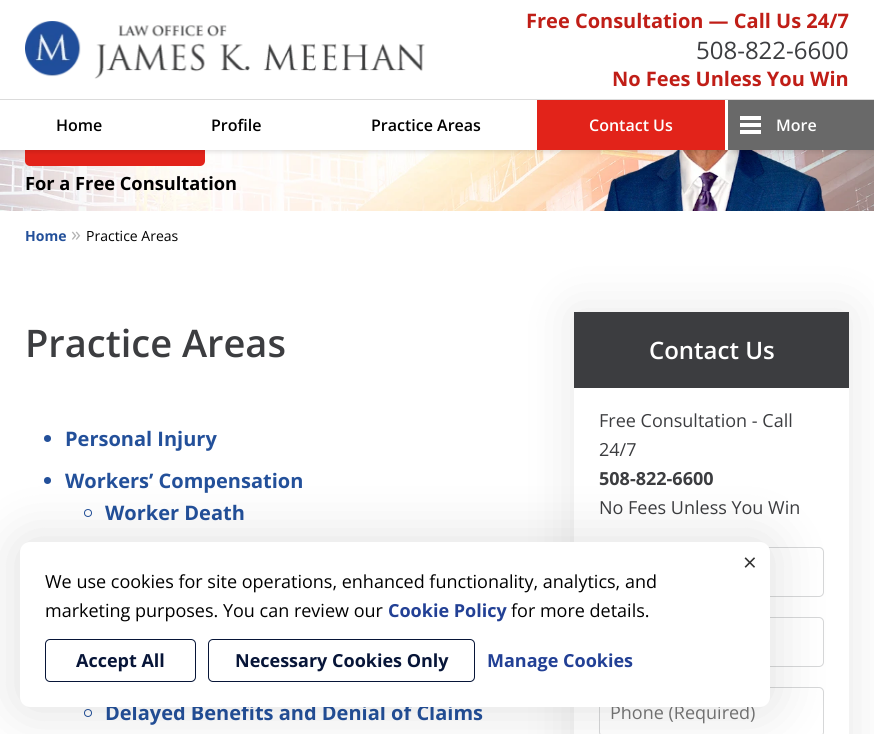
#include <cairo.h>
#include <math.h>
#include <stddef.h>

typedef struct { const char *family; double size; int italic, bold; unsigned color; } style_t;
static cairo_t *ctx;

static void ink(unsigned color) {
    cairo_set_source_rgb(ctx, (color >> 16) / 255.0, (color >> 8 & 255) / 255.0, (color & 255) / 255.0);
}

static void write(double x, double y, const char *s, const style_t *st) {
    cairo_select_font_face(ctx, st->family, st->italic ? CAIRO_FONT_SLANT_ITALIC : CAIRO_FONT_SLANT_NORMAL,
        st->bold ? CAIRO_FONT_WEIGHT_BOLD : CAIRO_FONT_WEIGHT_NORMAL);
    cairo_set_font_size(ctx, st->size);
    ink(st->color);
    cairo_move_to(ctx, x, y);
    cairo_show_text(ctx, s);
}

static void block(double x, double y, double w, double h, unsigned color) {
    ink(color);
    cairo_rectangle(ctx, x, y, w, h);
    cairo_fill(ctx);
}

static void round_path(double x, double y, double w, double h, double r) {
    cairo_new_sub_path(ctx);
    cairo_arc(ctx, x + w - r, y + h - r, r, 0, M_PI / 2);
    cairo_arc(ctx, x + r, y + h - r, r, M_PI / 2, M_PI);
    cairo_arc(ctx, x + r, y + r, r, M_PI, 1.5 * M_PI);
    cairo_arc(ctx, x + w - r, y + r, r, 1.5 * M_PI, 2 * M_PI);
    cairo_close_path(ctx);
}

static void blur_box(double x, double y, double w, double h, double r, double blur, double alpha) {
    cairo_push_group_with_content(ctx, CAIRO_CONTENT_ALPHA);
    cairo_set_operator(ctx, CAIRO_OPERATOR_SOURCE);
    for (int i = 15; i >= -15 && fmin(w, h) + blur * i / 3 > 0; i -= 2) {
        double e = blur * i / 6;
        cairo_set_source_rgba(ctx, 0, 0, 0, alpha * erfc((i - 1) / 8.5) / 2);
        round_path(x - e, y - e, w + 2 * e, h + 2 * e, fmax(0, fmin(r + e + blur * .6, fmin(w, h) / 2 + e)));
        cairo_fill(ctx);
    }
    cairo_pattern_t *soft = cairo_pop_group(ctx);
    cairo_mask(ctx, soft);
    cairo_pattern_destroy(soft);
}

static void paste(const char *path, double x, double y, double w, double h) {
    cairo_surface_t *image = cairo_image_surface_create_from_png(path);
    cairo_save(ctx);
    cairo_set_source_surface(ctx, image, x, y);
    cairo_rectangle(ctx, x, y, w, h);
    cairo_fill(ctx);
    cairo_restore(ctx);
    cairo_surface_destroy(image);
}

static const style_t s1 = {"Open Sans", 20, 0, 1, 0xc01e17};
static const style_t s2 = {"Open Sans", 24, 0, 0, 0x3c3d40};
static const style_t s3 = {"Open Sans SemiBold", 16, 0, 0, 0x000000};
static const style_t s4 = {"Open Sans SemiBold", 16, 0, 0, 0xffffff};
static const style_t s5 = {"Open Sans", 18.25, 0, 1, 0x000000};
static const style_t s6 = {"Open Sans", 14, 0, 1, 0x23509a};
static const style_t s7 = {"Open Sans", 20, 0, 0, 0xb3b3b3};
static const style_t s8 = {"Open Sans", 14, 0, 0, 0x000000};
static const style_t s9 = {"Open Sans SemiBold", 38, 0, 0, 0x3c3d40};
static const style_t s10 = {"Open Sans", 20, 0, 1, 0x23509a};
static const style_t s11 = {"Open Sans SemiBold", 24, 0, 0, 0xffffff};
static const style_t s12 = {"Open Sans", 18, 0, 0, 0x3c3d40};
static const style_t s13 = {"Open Sans", 18, 0, 1, 0x3c3d40};
static const style_t s14 = {"Open Sans", 18, 0, 0, 0x757575};
static const style_t s15 = {"Open Sans", 24, 0, 0, 0x333333};
static const style_t s16 = {"Open Sans", 18, 0, 0, 0x000000};
static const style_t s17 = {"Open Sans", 18, 0, 1, 0x224095};
static const style_t s18 = {"Open Sans", 18, 0, 1, 0x071538};

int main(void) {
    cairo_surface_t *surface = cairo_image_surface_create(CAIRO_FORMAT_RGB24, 874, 734);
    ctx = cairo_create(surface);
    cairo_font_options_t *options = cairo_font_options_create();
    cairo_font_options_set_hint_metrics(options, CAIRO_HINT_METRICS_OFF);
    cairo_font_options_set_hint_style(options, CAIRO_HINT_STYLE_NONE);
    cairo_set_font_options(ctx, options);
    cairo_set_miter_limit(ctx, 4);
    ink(0xffffff);
    cairo_paint(ctx);
    paste("pic2.png", 0, 150, 874, 61);
    ink(0xe2231a);
    round_path(25, 122, 180, 44, 5);
    cairo_fill(ctx);
    ink(0x000000);
    blur_box(0, 1, 874, 150, 0, 2.5, 0.15);
    block(0, 0, 874, 150, 0xffffff);
    paste("pic1.png", 25, 21, 400, 58);
    write(526, 28, "Free Consultation — Call Us 24/7", &s1);
    write(696, 59, "508-822-6600", &s2);
    write(612, 86, "No Fees Unless You Win", &s1);
    block(0, 99, 874, 1, 0xdbdbdb);
    write(56, 131, "Home", &s3);
    write(211, 131, "Profile", &s3);
    write(371, 131, "Practice Areas", &s3);
    block(537, 100, 188, 50, 0xe2231a);
    write(589, 131, "Contact Us", &s4);
    block(728, 100, 146, 50, 0x696969);
    block(740, 130, 21, 4, 0xffffff);
    block(740, 123, 21, 4, 0xffffff);
    block(740, 116, 21, 4, 0xffffff);
    write(776, 131, "More", &s4);
    write(25, 190, "For a Free Consultation", &s5);
    write(25, 241, "Home", &s6);
    write(71, 241, "»", &s7);
    write(86, 241, "Practice Areas", &s8);
    write(25, 357, "Practice Areas", &s9);
    ink(0x23509a);
    cairo_new_path(ctx);
    cairo_arc(ctx, 47.5, 438.5, 3.5, 0, 2 * M_PI);
    cairo_fill(ctx);
    write(65, 446, "Personal Injury", &s10);
    cairo_new_path(ctx);
    cairo_arc(ctx, 47.5, 480.5, 3.5, 0, 2 * M_PI);
    cairo_fill(ctx);
    write(65, 488, "Workers’ Compensation", &s10);
    cairo_new_path(ctx);
    cairo_arc(ctx, 88, 513, 3.5, 0, 2 * M_PI);
    cairo_set_line_width(ctx, 1);
    cairo_stroke(ctx);
    write(105, 520, "Worker Death", &s10);
    cairo_new_path(ctx);
    cairo_arc(ctx, 88, 713, 3.5, 0, 2 * M_PI);
    cairo_stroke(ctx);
    write(105, 720, "Delayed Benefits and Denial of Claims", &s10);
    ink(0x000000);
    blur_box(574, 312, 275, 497, 0, 25, 0.1);
    block(574, 312, 275, 76, 0x3c3d40);
    write(649, 359, "Contact Us", &s11);
    block(574, 388, 275, 346, 0xffffff);
    write(599, 427, "Free Consultation - Call", &s12);
    write(599, 456, "24/7", &s12);
    write(599, 485, "508-822-6600", &s13);
    write(599, 514, "No Fees Unless You Win", &s12);
    round_path(599.5, 547.5, 224, 49, 4.5);
    ink(0xd6d7d8);
    cairo_stroke(ctx);
    round_path(599.5, 617.5, 224, 49, 4.5);
    cairo_stroke(ctx);
    round_path(599.5, 687.5, 224, 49, 4.5);
    cairo_stroke(ctx);
    write(610, 719, "Phone (Required)", &s14);
    ink(0x000000);
    blur_box(10, 532, 770, 185, 20, 25, 0.1);
    ink(0xffffff);
    round_path(20, 542, 750, 165, 10);
    cairo_fill(ctx);
    write(743, 571, "×", &s15);
    write(45, 588, "We use cookies for site operations, enhanced functionality, analytics, and", &s16);
    write(45, 617, "marketing purposes. You can review our", &s16);
    write(388, 617, "Cookie Policy", &s17);
    write(511, 617, "for more details.", &s16);
    round_path(45.5, 639.5, 150, 42, 4.5);
    ink(0x071538);
    cairo_stroke(ctx);
    write(76, 667, "Accept All", &s18);
    round_path(208.5, 639.5, 266, 42, 4.5);
    cairo_stroke(ctx);
    write(235, 667, "Necessary Cookies Only", &s18);
    write(487, 667, "Manage Cookies", &s17);
    cairo_surface_write_to_png(surface, "screenshot.png");
    cairo_font_options_destroy(options);
    cairo_destroy(ctx);
    cairo_surface_destroy(surface);
    return 0;
}
